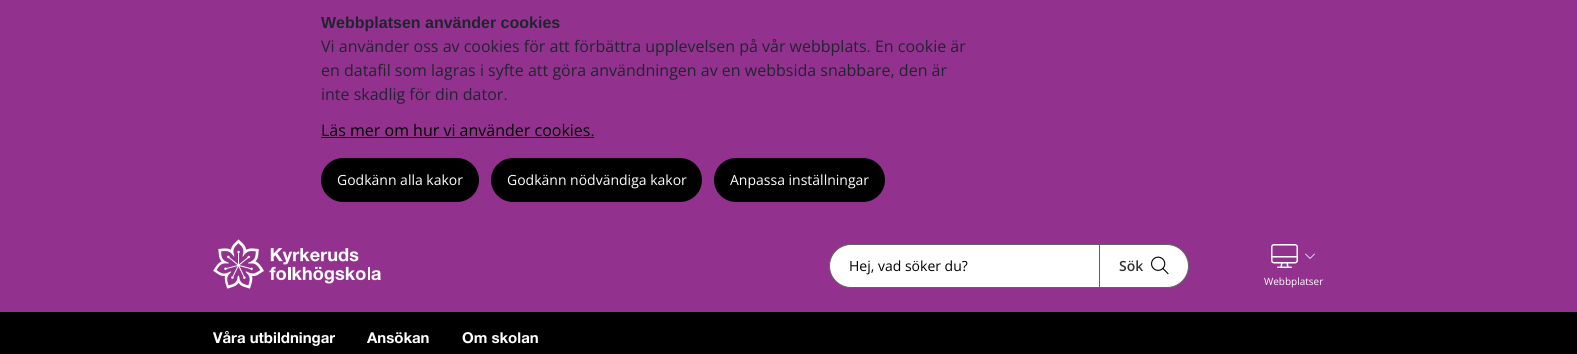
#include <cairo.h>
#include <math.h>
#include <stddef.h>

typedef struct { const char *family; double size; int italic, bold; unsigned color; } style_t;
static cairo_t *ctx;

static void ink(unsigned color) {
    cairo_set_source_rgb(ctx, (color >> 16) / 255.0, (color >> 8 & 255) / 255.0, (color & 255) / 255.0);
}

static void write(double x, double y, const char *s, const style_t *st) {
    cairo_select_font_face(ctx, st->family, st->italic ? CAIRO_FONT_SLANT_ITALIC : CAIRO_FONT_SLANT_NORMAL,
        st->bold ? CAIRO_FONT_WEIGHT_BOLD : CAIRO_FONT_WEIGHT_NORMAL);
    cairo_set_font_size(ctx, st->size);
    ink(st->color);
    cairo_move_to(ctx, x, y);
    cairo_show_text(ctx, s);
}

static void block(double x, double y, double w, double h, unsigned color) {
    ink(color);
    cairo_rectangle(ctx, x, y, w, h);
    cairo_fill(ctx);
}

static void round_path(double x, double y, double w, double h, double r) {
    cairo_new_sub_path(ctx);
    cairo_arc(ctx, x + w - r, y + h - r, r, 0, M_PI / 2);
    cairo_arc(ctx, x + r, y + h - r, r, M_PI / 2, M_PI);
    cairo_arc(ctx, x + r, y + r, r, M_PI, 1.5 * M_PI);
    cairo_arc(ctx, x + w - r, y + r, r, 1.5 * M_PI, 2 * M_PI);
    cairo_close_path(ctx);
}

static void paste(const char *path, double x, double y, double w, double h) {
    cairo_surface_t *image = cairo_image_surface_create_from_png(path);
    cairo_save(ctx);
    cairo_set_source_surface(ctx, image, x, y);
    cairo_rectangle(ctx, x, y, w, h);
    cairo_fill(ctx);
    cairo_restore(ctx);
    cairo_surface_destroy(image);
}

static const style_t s1 = {"Liberation Sans", 16, 0, 1, 0x202330};
static const style_t s2 = {"Open Sans", 16, 0, 0, 0x202330};
static const style_t s3 = {"Open Sans", 16, 0, 0, 0x000000};
static const style_t s4 = {"Open Sans", 14, 0, 0, 0xffffff};
static const style_t s5 = {"Open Sans", 14, 0, 0, 0x000000};
static const style_t s6 = {"Open Sans SemiBold", 14, 0, 0, 0x333333};
static const style_t s7 = {"Open Sans", 10, 0, 0, 0xffffff};
static const style_t s8 = {"helvetica neue", 15, 0, 0, 0xffffff};

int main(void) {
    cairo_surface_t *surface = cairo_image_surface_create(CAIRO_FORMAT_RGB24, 1577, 354);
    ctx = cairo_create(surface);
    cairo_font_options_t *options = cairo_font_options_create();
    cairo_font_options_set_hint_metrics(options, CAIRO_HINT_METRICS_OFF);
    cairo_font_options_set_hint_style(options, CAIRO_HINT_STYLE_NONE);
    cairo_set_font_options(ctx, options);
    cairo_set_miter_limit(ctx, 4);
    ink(0x93328e);
    cairo_paint(ctx);
    write(321, 28, "Webbplatsen använder cookies", &s1);
    write(321, 52, "Vi använder oss av cookies för att förbättra upplevelsen på vår webbplats. En cookie är", &s2);
    write(321, 76, "en datafil som lagras i syfte att göra användningen av en webbsida snabbare, den är", &s2);
    write(321, 100, "inte skadlig för din dator.", &s2);
    write(321, 136, "Läs mer om hur vi använder cookies.", &s3);
    block(321, 137, 273, 1, 0x000000);
    round_path(321, 158, 158, 44, 22);
    cairo_fill(ctx);
    write(337, 185, "Godkänn alla kakor", &s4);
    ink(0x000000);
    round_path(491, 158, 211, 44, 22);
    cairo_fill(ctx);
    write(507, 185, "Godkänn nödvändiga kakor", &s4);
    ink(0x000000);
    round_path(714, 158, 171, 44, 22);
    cairo_fill(ctx);
    write(730, 185, "Anpassa inställningar", &s4);
    paste("pic1.png", 213, 239, 168, 50);
    round_path(829.5, 244.5, 359, 43, 21.5);
    cairo_fill_preserve(ctx);
    ink(0x616161);
    cairo_set_line_width(ctx, 1);
    cairo_stroke(ctx);
    block(1099, 245, 1, 42, 0x616161);
    write(849, 271, "Hej, vad söker du?", &s5);
    write(1119, 271, "Sök", &s6);
    paste("pic2.png", 1151, 256, 18, 19);
    paste("pic3.png", 1271, 244, 27, 24);
    paste("pic4.png", 1305, 253, 10, 6);
    write(1264, 285, "Webbplatser", &s7);
    block(0, 312, 1577, 42, 0x000000);
    write(213, 343, "Våra utbildningar", &s8);
    write(367, 343, "Ansökan", &s8);
    write(462, 343, "Om skolan", &s8);
    cairo_surface_write_to_png(surface, "screenshot.png");
    cairo_font_options_destroy(options);
    cairo_destroy(ctx);
    cairo_surface_destroy(surface);
    return 0;
}
